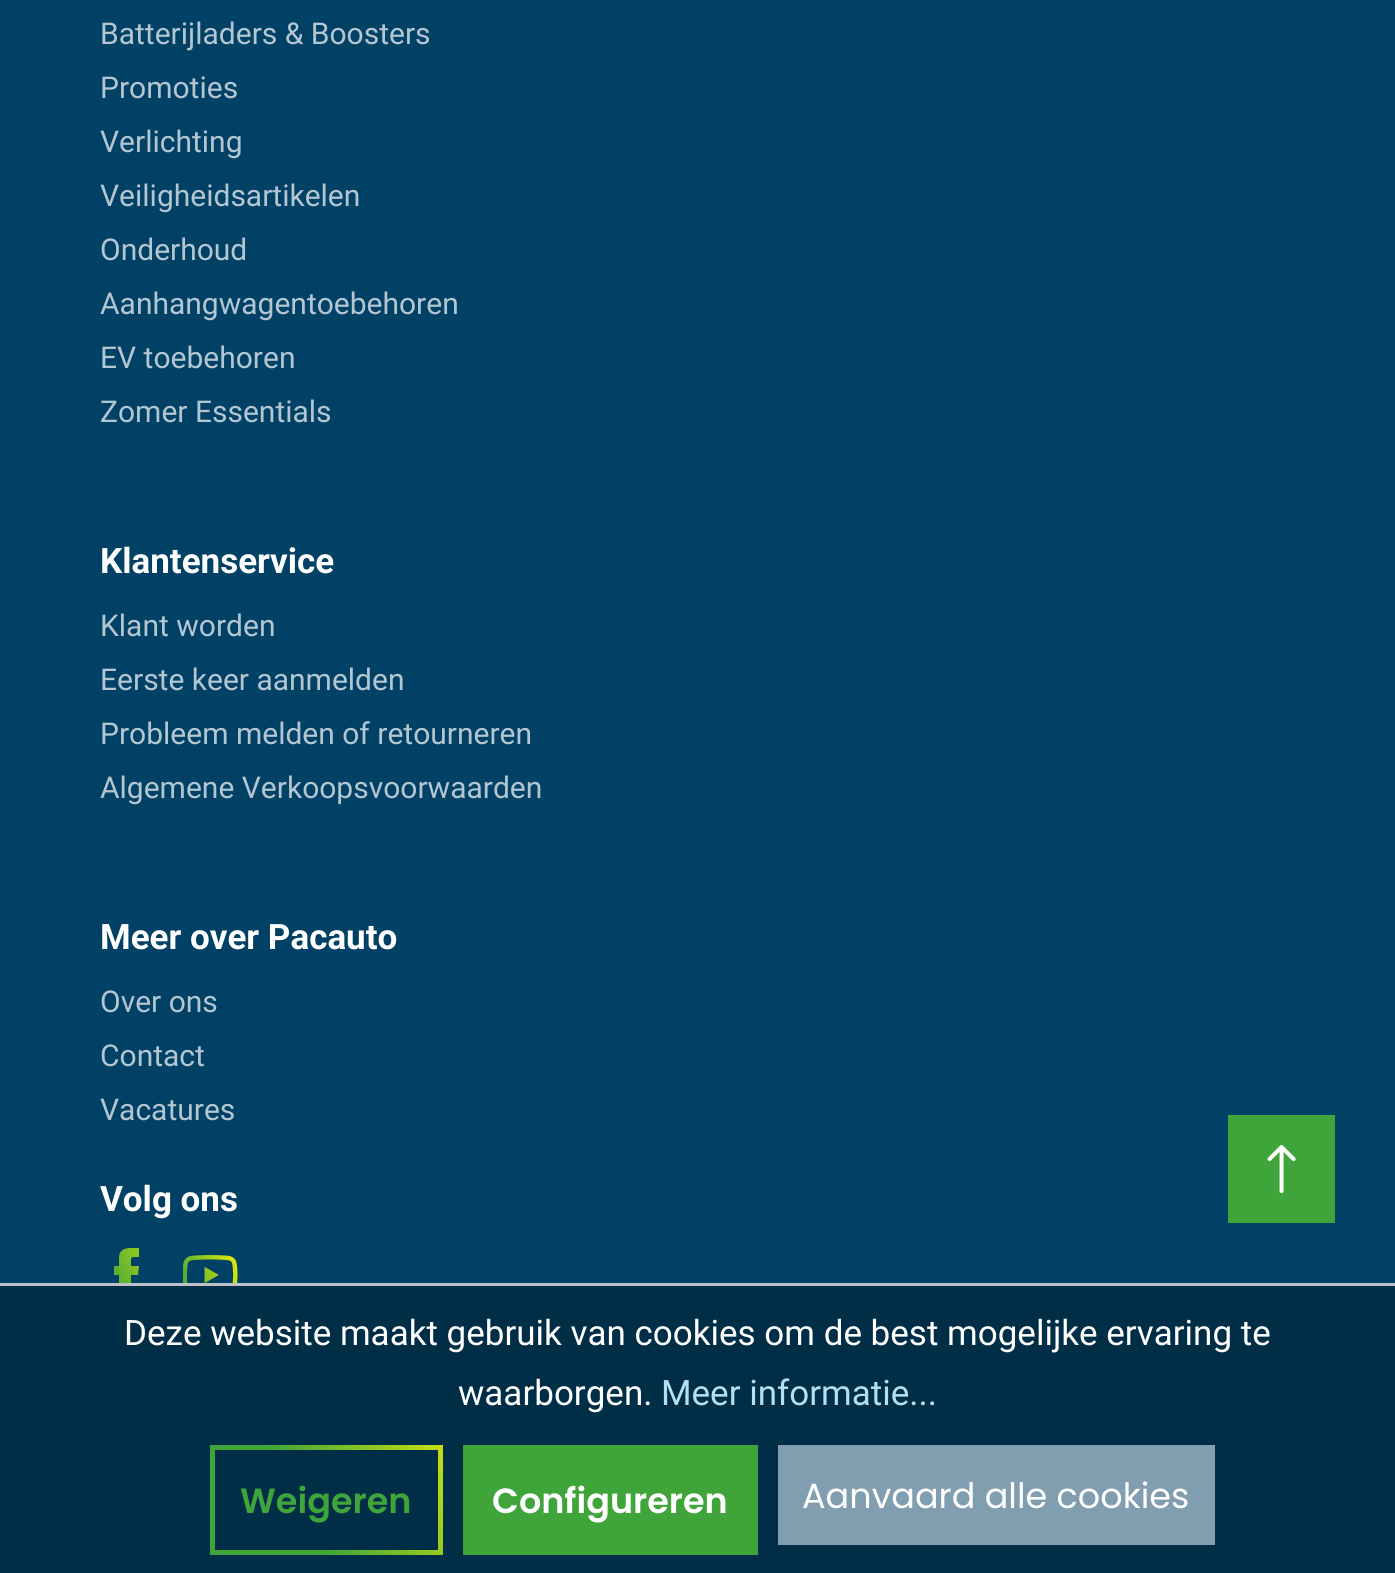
#include <cairo.h>
#include <math.h>
#include <stddef.h>

typedef struct { const char *family; double size; int italic, bold; unsigned color; } style_t;
static cairo_t *ctx;

static void ink(unsigned color) {
    cairo_set_source_rgb(ctx, (color >> 16) / 255.0, (color >> 8 & 255) / 255.0, (color & 255) / 255.0);
}

static void write(double x, double y, const char *s, const style_t *st) {
    cairo_select_font_face(ctx, st->family, st->italic ? CAIRO_FONT_SLANT_ITALIC : CAIRO_FONT_SLANT_NORMAL,
        st->bold ? CAIRO_FONT_WEIGHT_BOLD : CAIRO_FONT_WEIGHT_NORMAL);
    cairo_set_font_size(ctx, st->size);
    ink(st->color);
    cairo_move_to(ctx, x, y);
    cairo_show_text(ctx, s);
}

static void block(double x, double y, double w, double h, unsigned color) {
    ink(color);
    cairo_rectangle(ctx, x, y, w, h);
    cairo_fill(ctx);
}

static void paste(const char *path, double x, double y, double w, double h) {
    cairo_surface_t *image = cairo_image_surface_create_from_png(path);
    cairo_save(ctx);
    cairo_set_source_surface(ctx, image, x, y);
    cairo_rectangle(ctx, x, y, w, h);
    cairo_fill(ctx);
    cairo_restore(ctx);
    cairo_surface_destroy(image);
}

static const style_t s1 = {"Roboto", 30, 0, 0, 0xb3c6d1};
static const style_t s2 = {"Roboto", 35, 0, 1, 0xffffff};
static const style_t s3 = {"Roboto", 35, 0, 0, 0xffffff};
static const style_t s4 = {"Roboto", 35, 0, 0, 0xb2dff4};
static const style_t s5 = {"Poppins SemiBold", 35, 0, 0, 0x3fa53a};
static const style_t s6 = {"Poppins SemiBold", 35, 0, 0, 0xffffff};
static const style_t s7 = {"Poppins", 35, 0, 0, 0xffffff};

int main(void) {
    cairo_surface_t *surface = cairo_image_surface_create(CAIRO_FORMAT_RGB24, 1395, 1573);
    ctx = cairo_create(surface);
    cairo_font_options_t *options = cairo_font_options_create();
    cairo_font_options_set_hint_metrics(options, CAIRO_HINT_METRICS_OFF);
    cairo_font_options_set_hint_style(options, CAIRO_HINT_STYLE_NONE);
    cairo_set_font_options(ctx, options);
    cairo_set_miter_limit(ctx, 4);
    cairo_pattern_t *gradient;
    ink(0x014165);
    cairo_paint(ctx);
    write(100, 44, "Batterijladers & Boosters", &s1);
    write(100, 98, "Promoties", &s1);
    write(100, 152, "Verlichting", &s1);
    write(100, 206, "Veiligheidsartikelen", &s1);
    write(100, 260, "Onderhoud", &s1);
    write(100, 314, "Aanhangwagentoebehoren", &s1);
    write(100, 368, "EV toebehoren", &s1);
    write(100, 422, "Zomer Essentials", &s1);
    write(100, 573, "Klantenservice", &s2);
    write(100, 636, "Klant worden", &s1);
    write(100, 690, "Eerste keer aanmelden", &s1);
    write(100, 744, "Probleem melden of retourneren", &s1);
    write(100, 798, "Algemene Verkoopsvoorwaarden", &s1);
    write(100, 949, "Meer over Pacauto", &s2);
    write(100, 1012, "Over ons", &s1);
    write(100, 1066, "Contact", &s1);
    write(100, 1120, "Vacatures", &s1);
    write(100, 1211, "Volg ons", &s2);
    cairo_save(ctx);
    cairo_rectangle(ctx, 100, 1248, 55, 55);
    cairo_clip(ctx);
    gradient = cairo_pattern_create_linear(118, 1315, 244, 1261);
    cairo_pattern_add_color_stop_rgba(gradient, 0, 0.247, 0.647, 0.227, 1);
    cairo_pattern_add_color_stop_rgba(gradient, 0.75, 1, 0.961, 0, 1);
    cairo_set_source(ctx, gradient);
    cairo_pattern_destroy(gradient);
    cairo_new_path(ctx);
    cairo_move_to(ctx, 119, 1258);
    cairo_line_to(ctx, 119, 1266);
    cairo_line_to(ctx, 114, 1266);
    cairo_line_to(ctx, 114, 1275);
    cairo_line_to(ctx, 119, 1275);
    cairo_line_to(ctx, 119, 1302);
    cairo_line_to(ctx, 131, 1302);
    cairo_line_to(ctx, 131, 1275);
    cairo_line_to(ctx, 138, 1275);
    cairo_line_to(ctx, 139, 1266);
    cairo_line_to(ctx, 131, 1266);
    cairo_curve_to(ctx, 131, 1256, 130, 1257, 139, 1257);
    cairo_line_to(ctx, 139, 1248);
    cairo_curve_to(ctx, 131, 1248, 119, 1246, 119, 1258);
    cairo_close_path(ctx);
    cairo_fill(ctx);
    cairo_restore(ctx);
    paste("pic1.png", 183, 1255, 55, 28);
    block(1228, 1115, 107, 108, 0x3fa53a);
    paste("pic2.png", 1267, 1145, 29, 48);
    block(0, 1286, 1395, 287, 0x002e47);
    block(0, 1283, 1395, 3, 0xbcc1c7);
    write(124, 1345, "Deze website maakt gebruik van cookies om de best mogelijke ervaring te", &s3);
    write(458, 1405, "waarborgen.", &s3);
    write(661, 1405, "Meer informatie...", &s4);
    gradient = cairo_pattern_create_linear(214, 1562, 495, 1407);
    cairo_pattern_add_color_stop_rgba(gradient, 0.32, 0.247, 0.647, 0.227, 1);
    cairo_pattern_add_color_stop_rgba(gradient, 1, 1, 0.961, 0, 1);
    cairo_set_source(ctx, gradient);
    cairo_pattern_destroy(gradient);
    cairo_rectangle(ctx, 210, 1445, 233, 110);
    cairo_fill(ctx);
    cairo_save(ctx);
    cairo_rectangle(ctx, 215, 1450, 223, 100);
    cairo_clip(ctx);
    ink(0x002e47);
    cairo_set_fill_rule(ctx, CAIRO_FILL_RULE_EVEN_ODD);
    cairo_new_path(ctx);
    cairo_move_to(ctx, -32, 1202);
    cairo_line_to(ctx, 685, 1202);
    cairo_line_to(ctx, 685, 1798);
    cairo_line_to(ctx, -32, 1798);
    cairo_close_path(ctx);
    cairo_move_to(ctx, 220, 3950);
    cairo_line_to(ctx, 442, 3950);
    cairo_line_to(ctx, 442, 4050);
    cairo_line_to(ctx, 220, 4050);
    cairo_close_path(ctx);
    cairo_fill(ctx);
    cairo_restore(ctx);
    write(240, 1513, "Weigeren", &s5);
    block(463, 1445, 295, 110, 0x3fa53a);
    write(492, 1513, "Configureren", &s6);
    block(778, 1445, 437, 100, 0x809eaf);
    write(802, 1508, "Aanvaard alle cookies", &s7);
    cairo_surface_write_to_png(surface, "screenshot.png");
    cairo_font_options_destroy(options);
    cairo_destroy(ctx);
    cairo_surface_destroy(surface);
    return 0;
}
